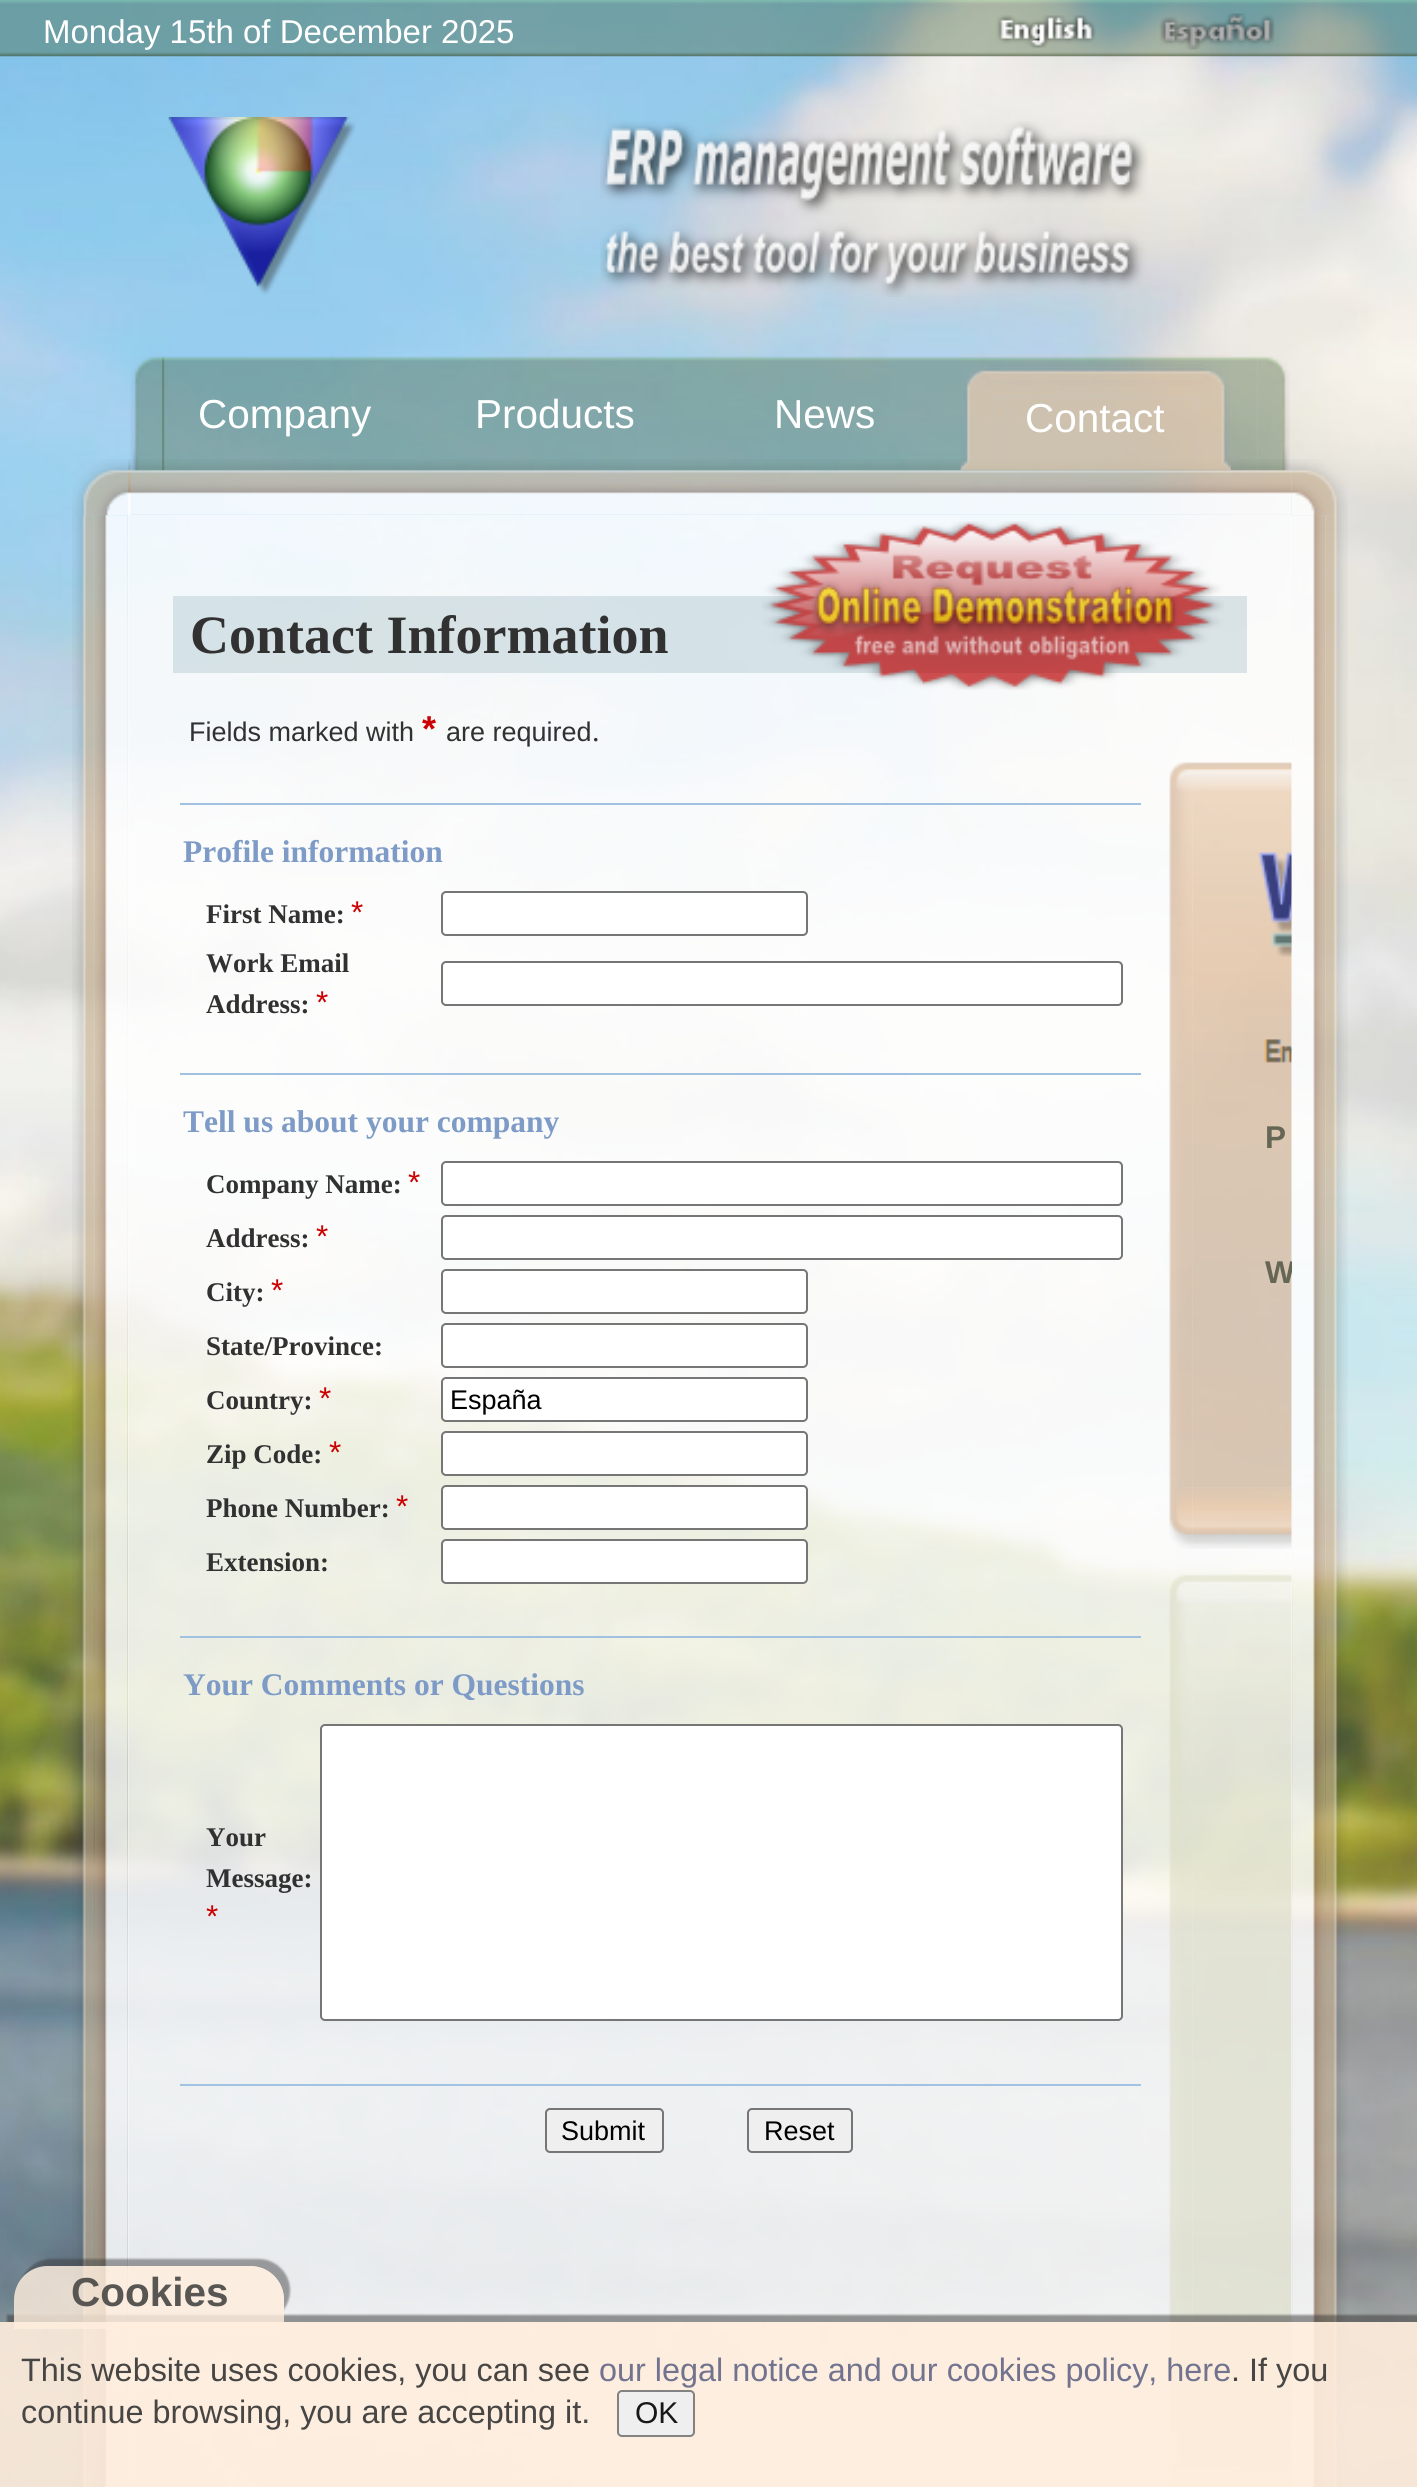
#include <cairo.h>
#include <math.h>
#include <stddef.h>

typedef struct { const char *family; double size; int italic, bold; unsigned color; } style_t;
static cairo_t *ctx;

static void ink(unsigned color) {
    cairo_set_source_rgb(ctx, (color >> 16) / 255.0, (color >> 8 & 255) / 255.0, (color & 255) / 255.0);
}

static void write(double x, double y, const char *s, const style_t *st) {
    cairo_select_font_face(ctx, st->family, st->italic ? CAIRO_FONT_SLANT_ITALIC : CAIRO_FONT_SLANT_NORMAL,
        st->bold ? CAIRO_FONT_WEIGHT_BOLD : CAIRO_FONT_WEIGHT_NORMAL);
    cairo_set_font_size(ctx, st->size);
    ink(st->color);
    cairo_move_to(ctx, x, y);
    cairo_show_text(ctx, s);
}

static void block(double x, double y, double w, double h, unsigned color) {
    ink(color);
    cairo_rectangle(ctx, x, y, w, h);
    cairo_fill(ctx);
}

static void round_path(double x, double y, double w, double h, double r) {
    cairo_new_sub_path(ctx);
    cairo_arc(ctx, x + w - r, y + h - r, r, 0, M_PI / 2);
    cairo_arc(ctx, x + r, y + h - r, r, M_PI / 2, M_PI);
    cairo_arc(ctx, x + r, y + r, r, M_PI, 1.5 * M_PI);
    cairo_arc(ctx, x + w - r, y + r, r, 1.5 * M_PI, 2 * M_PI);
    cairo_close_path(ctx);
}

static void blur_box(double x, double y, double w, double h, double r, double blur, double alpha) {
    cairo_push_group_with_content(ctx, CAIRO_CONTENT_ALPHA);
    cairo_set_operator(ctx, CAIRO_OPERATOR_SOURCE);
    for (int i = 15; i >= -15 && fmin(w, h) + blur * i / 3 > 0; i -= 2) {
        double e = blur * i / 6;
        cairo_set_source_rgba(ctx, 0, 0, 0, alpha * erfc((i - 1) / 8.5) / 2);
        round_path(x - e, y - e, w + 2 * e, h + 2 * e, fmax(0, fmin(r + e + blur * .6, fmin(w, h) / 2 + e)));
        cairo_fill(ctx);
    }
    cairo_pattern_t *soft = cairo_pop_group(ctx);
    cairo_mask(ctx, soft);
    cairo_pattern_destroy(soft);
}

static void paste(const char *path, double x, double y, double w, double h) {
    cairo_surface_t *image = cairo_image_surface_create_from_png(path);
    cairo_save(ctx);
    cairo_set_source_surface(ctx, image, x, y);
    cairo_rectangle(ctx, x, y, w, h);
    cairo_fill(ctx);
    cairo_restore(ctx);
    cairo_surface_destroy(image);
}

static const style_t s1 = {"Liberation Sans", 33, 0, 0, 0xffffff};
static const style_t s2 = {"Liberation Sans", 40.5, 0, 0, 0xffffff};
static const style_t s3 = {"Liberation Serif", 54, 0, 1, 0x313131};
static const style_t s4 = {"Liberation Sans", 27, 0, 0, 0x313131};
static const style_t s5 = {"Liberation Sans", 36, 0, 1, 0xcc0000};
static const style_t s6 = {"Liberation Serif", 30, 0, 0, 0x313131};
static const style_t s7 = {"Liberation Serif", 31.5, 0, 1, 0x7d9bc6};
static const style_t s8 = {"Liberation Serif", 27, 0, 1, 0x313131};
static const style_t s9 = {"Liberation Sans", 31.5, 0, 0, 0xcc0000};
static const style_t s10 = {"Liberation Sans", 27, 0, 0, 0x000000};
static const style_t s11 = {"Liberation Sans", 31.5, 0, 1, 0x666655};
static const style_t s12 = {"Liberation Sans", 40.5, 0, 1, 0x585653};
static const style_t s13 = {"Liberation Sans", 32.4, 0, 0, 0x474644};
static const style_t s14 = {"Liberation Sans", 32.4, 0, 0, 0x72738f};
static const style_t s15 = {"Liberation Sans", 30, 0, 0, 0x181818};

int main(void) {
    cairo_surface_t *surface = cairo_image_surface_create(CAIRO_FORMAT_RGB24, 1417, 2487);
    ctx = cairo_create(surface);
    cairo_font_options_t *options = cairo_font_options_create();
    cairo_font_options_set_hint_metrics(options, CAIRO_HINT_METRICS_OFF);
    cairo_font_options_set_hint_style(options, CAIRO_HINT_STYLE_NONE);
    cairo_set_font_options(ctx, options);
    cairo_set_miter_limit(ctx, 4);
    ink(0xffffff);
    cairo_paint(ctx);
    paste("pic1.png", 0, 0, 1417, 2487);
    paste("pic2.png", 0, 0, 1417, 57);
    write(43, 43, "Monday 15th of December 2025", &s1);
    paste("pic3.png", 996, 15, 100, 34);
    paste("pic4.png", 1159, 13, 116, 37);
    paste("pic5.png", 168, 117, 188, 178);
    paste("pic6.png", 600, 121, 548, 176);
    paste("pic13.png", 72, 459, 59, 57);
    paste("pic14.png", 1291, 459, 57, 57);
    paste("pic15.png", 128, 459, 1164, 57);
    paste("pic7.png", 130, 356, 35, 115);
    paste("pic8.png", 1257, 356, 33, 115);
    paste("pic9.png", 162, 356, 1096, 115);
    write(198, 428, "Company", &s2);
    write(475, 428, "Products", &s2);
    write(774, 428, "News", &s2);
    paste("pic10.png", 960, 355, 271, 116);
    paste("pic11.png", 960, 355, 271, 116);
    paste("pic12.png", 960, 355, 271, 116);
    write(1025, 432, "Contact", &s2);
    paste("pic16.png", 72, 515, 24, 1972);
    paste("pic17.png", 1324, 515, 24, 1972);
    paste("pic18.png", 94, 515, 35, 1972);
    paste("pic19.png", 1290, 515, 36, 1972);
    cairo_set_source_rgba(ctx, 1, 1, 1, 0.85);
    cairo_rectangle(ctx, 128, 515, 1164, 1972);
    cairo_fill(ctx);
    cairo_set_source_rgba(ctx, 0.643, 0.745, 0.776, 0.38);
    cairo_rectangle(ctx, 173, 596, 1074, 77);
    cairo_fill(ctx);
    paste("pic20.png", 762, 521, 462, 169);
    write(190, 653, "Contact Information", &s3);
    write(189, 741, "Fields marked with", &s4);
    write(422, 741, "*", &s5);
    write(446, 741, "are required", &s4);
    write(592, 741, ".", &s6);
    block(180, 803, 961, 2, 0xa2c1e0);
    write(183, 862, "Profile information", &s7);
    write(206, 923, "First Name:", &s8);
    write(351, 923, "*", &s9);
    ink(0xffffff);
    round_path(442, 892, 365, 43, 4);
    cairo_fill_preserve(ctx);
    ink(0x767676);
    cairo_stroke(ctx);
    write(206, 972, "Work Email", &s8);
    write(206, 1013, "Address:", &s8);
    write(316, 1013, "*", &s9);
    ink(0xffffff);
    round_path(442, 962, 680, 43, 4);
    cairo_fill_preserve(ctx);
    ink(0x767676);
    cairo_stroke(ctx);
    block(180, 1073, 961, 2, 0xa2c1e0);
    write(183, 1132, "Tell us about your company", &s7);
    write(206, 1193, "Company Name:", &s8);
    write(408, 1193, "*", &s9);
    ink(0xffffff);
    round_path(442, 1162, 680, 43, 4);
    cairo_fill_preserve(ctx);
    ink(0x767676);
    cairo_stroke(ctx);
    write(206, 1247, "Address:", &s8);
    write(316, 1247, "*", &s9);
    ink(0xffffff);
    round_path(442, 1216, 680, 43, 4);
    cairo_fill_preserve(ctx);
    ink(0x767676);
    cairo_stroke(ctx);
    write(206, 1301, "City:", &s8);
    write(271, 1301, "*", &s9);
    ink(0xffffff);
    round_path(442, 1270, 365, 43, 4);
    cairo_fill_preserve(ctx);
    ink(0x767676);
    cairo_stroke(ctx);
    write(206, 1355, "State/Province:", &s8);
    ink(0xffffff);
    round_path(442, 1324, 365, 43, 4);
    cairo_fill_preserve(ctx);
    ink(0x767676);
    cairo_stroke(ctx);
    write(206, 1409, "Country:", &s8);
    write(319, 1409, "*", &s9);
    ink(0xffffff);
    round_path(442, 1378, 365, 43, 4);
    cairo_fill_preserve(ctx);
    ink(0x767676);
    cairo_stroke(ctx);
    write(450, 1409, "España", &s10);
    write(206, 1463, "Zip Code:", &s8);
    write(329, 1463, "*", &s9);
    ink(0xffffff);
    round_path(442, 1432, 365, 43, 4);
    cairo_fill_preserve(ctx);
    ink(0x767676);
    cairo_stroke(ctx);
    write(206, 1517, "Phone Number:", &s8);
    write(396, 1517, "*", &s9);
    ink(0xffffff);
    round_path(442, 1486, 365, 43, 4);
    cairo_fill_preserve(ctx);
    ink(0x767676);
    cairo_stroke(ctx);
    write(206, 1571, "Extension:", &s8);
    ink(0xffffff);
    round_path(442, 1540, 365, 43, 4);
    cairo_fill_preserve(ctx);
    ink(0x767676);
    cairo_stroke(ctx);
    block(180, 1636, 961, 2, 0xa2c1e0);
    write(183, 1695, "Your Comments or Questions", &s7);
    write(206, 1846, "Your", &s8);
    write(206, 1887, "Message:", &s8);
    write(206, 1927, "*", &s9);
    ink(0xffffff);
    round_path(321, 1725, 801, 295, 4);
    cairo_fill_preserve(ctx);
    ink(0x767676);
    cairo_stroke(ctx);
    block(180, 2084, 961, 2, 0xa1c2e2);
    ink(0xefefef);
    round_path(546, 2109, 117, 43, 4);
    cairo_fill_preserve(ctx);
    ink(0x767676);
    cairo_stroke(ctx);
    write(561, 2140, "Submit", &s10);
    ink(0xefefef);
    round_path(748, 2109, 104, 43, 4);
    cairo_fill_preserve(ctx);
    ink(0x767676);
    cairo_stroke(ctx);
    write(764, 2140, "Reset", &s10);
    paste("pic21.png", 1192, 762, 100, 726);
    paste("pic22.png", 1169, 762, 24, 726);
    paste("pic23.png", 1257, 852, 35, 105);
    paste("pic24.png", 1264, 1039, 28, 24);
    write(1265, 1148, "P", &s11);
    cairo_save(ctx);
    cairo_rectangle(ctx, 128, 515, 1164, 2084);
    cairo_clip(ctx);
    write(1265, 1283, "W", &s11);
    cairo_restore(ctx);
    paste("pic25.png", 1192, 1487, 100, 62);
    paste("pic26.png", 1169, 1487, 24, 62);
    paste("pic27.png", 1192, 1574, 100, 890);
    paste("pic28.png", 1169, 1574, 24, 890);
    paste("pic29.png", 1192, 2464, 100, 23);
    paste("pic30.png", 1169, 2463, 24, 24);
    cairo_save(ctx);
    cairo_rectangle(ctx, 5, 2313, 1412, 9);
    cairo_clip(ctx);
    ink(0x323232);
    blur_box(7, 2315, 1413, 167, 0, 1, 0.5);
    cairo_restore(ctx);
    cairo_set_source_rgba(ctx, 1, 0.933, 0.867, 0.9);
    cairo_rectangle(ctx, 0, 2322, 1417, 165);
    cairo_fill(ctx);
    cairo_save(ctx);
    cairo_set_fill_rule(ctx, CAIRO_FILL_RULE_EVEN_ODD);
    cairo_new_path(ctx);
    cairo_move_to(ctx, 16, 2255);
    cairo_line_to(ctx, 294, 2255);
    cairo_line_to(ctx, 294, 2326);
    cairo_line_to(ctx, 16, 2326);
    cairo_close_path(ctx);
    cairo_move_to(ctx, 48, 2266);
    cairo_line_to(ctx, 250, 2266);
    cairo_curve_to(ctx, 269, 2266, 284, 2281, 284, 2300);
    cairo_line_to(ctx, 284, 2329);
    cairo_line_to(ctx, 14, 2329);
    cairo_line_to(ctx, 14, 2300);
    cairo_curve_to(ctx, 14, 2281, 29, 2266, 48, 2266);
    cairo_close_path(ctx);
    cairo_clip(ctx);
    ink(0x323232);
    blur_box(20, 2259, 270, 63, 34, 1, 0.45);
    cairo_restore(ctx);
    cairo_set_source_rgba(ctx, 1, 0.933, 0.867, 0.81);
    cairo_new_path(ctx);
    cairo_move_to(ctx, 48, 2266);
    cairo_line_to(ctx, 250, 2266);
    cairo_curve_to(ctx, 269, 2266, 284, 2281, 284, 2300);
    cairo_line_to(ctx, 284, 2329);
    cairo_line_to(ctx, 14, 2329);
    cairo_line_to(ctx, 14, 2300);
    cairo_curve_to(ctx, 14, 2281, 29, 2266, 48, 2266);
    cairo_close_path(ctx);
    cairo_fill(ctx);
    write(71, 2306, "Cookies", &s12);
    write(21, 2381, "This website uses cookies, you can see", &s13);
    write(599, 2381, "our legal notice and our cookies policy, here", &s14);
    write(1231, 2381, ". If you", &s13);
    write(21, 2423, "continue browsing, you are accepting it.", &s13);
    ink(0xefefef);
    round_path(618, 2391, 76, 45, 4);
    cairo_fill_preserve(ctx);
    ink(0x828282);
    cairo_stroke(ctx);
    write(635, 2423, "OK", &s15);
    cairo_surface_write_to_png(surface, "screenshot.png");
    cairo_font_options_destroy(options);
    cairo_destroy(ctx);
    cairo_surface_destroy(surface);
    return 0;
}
